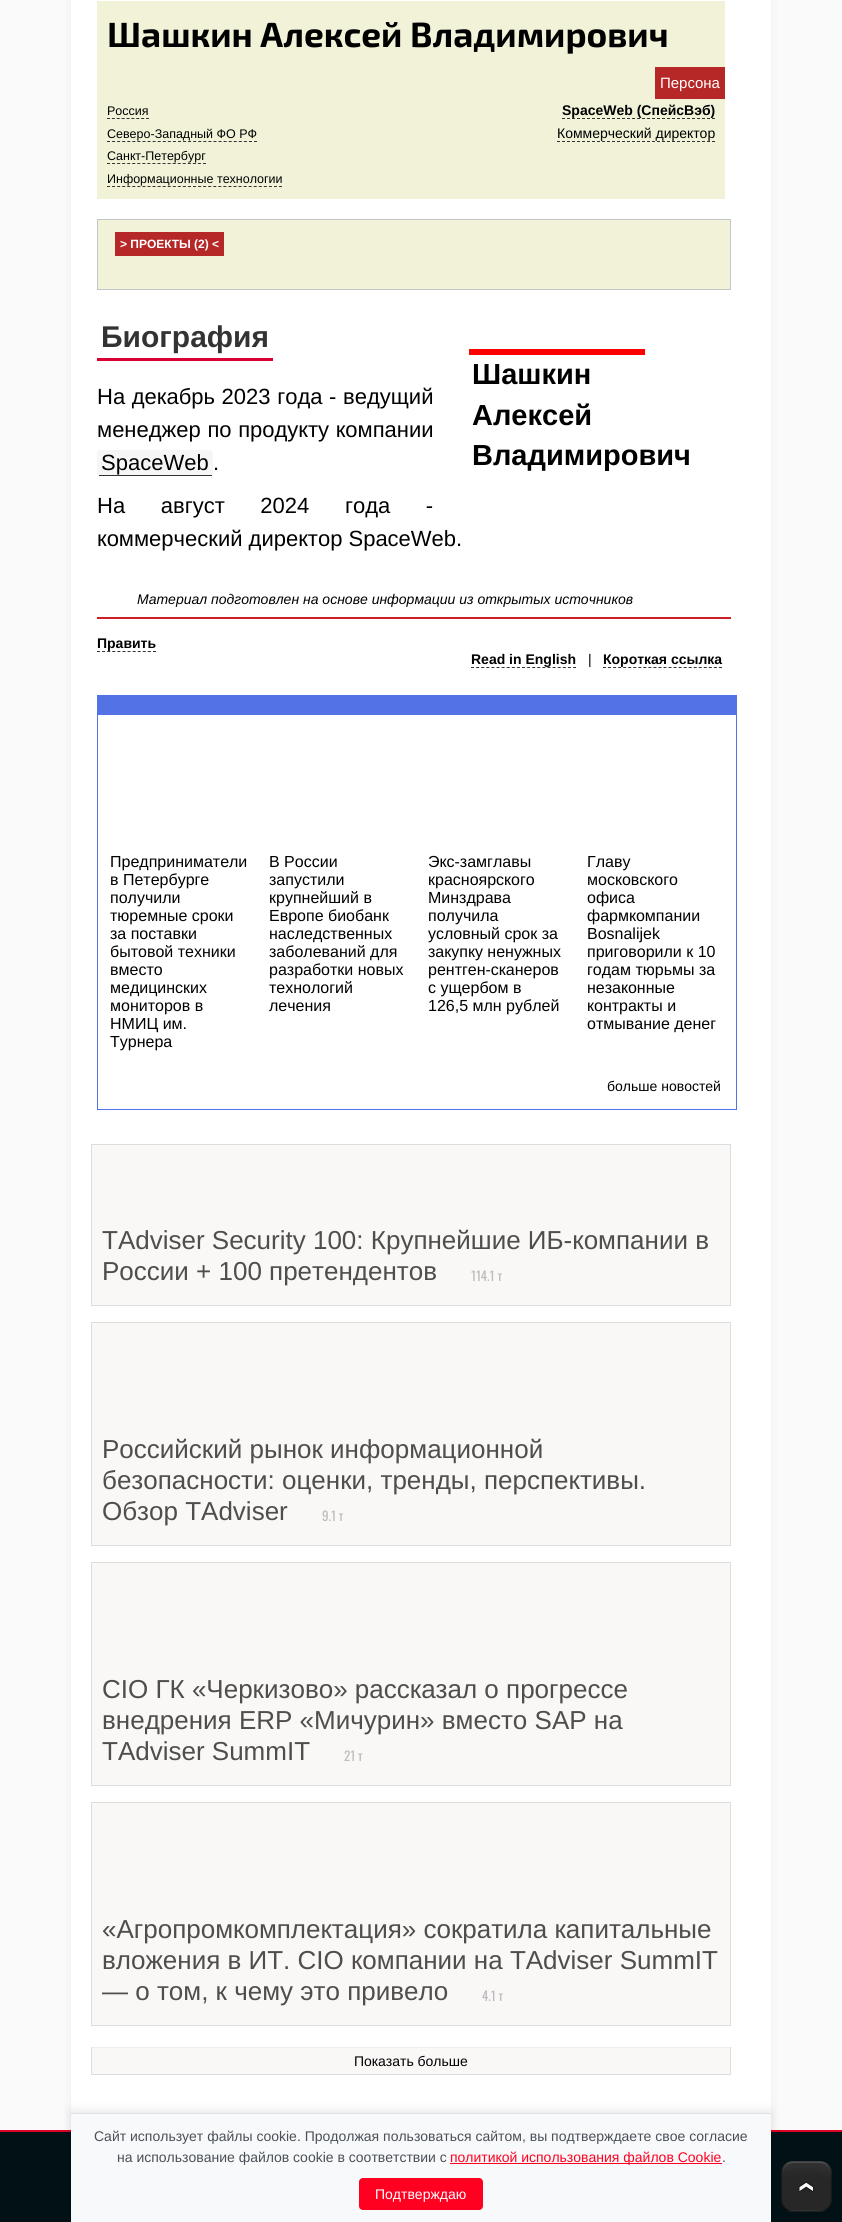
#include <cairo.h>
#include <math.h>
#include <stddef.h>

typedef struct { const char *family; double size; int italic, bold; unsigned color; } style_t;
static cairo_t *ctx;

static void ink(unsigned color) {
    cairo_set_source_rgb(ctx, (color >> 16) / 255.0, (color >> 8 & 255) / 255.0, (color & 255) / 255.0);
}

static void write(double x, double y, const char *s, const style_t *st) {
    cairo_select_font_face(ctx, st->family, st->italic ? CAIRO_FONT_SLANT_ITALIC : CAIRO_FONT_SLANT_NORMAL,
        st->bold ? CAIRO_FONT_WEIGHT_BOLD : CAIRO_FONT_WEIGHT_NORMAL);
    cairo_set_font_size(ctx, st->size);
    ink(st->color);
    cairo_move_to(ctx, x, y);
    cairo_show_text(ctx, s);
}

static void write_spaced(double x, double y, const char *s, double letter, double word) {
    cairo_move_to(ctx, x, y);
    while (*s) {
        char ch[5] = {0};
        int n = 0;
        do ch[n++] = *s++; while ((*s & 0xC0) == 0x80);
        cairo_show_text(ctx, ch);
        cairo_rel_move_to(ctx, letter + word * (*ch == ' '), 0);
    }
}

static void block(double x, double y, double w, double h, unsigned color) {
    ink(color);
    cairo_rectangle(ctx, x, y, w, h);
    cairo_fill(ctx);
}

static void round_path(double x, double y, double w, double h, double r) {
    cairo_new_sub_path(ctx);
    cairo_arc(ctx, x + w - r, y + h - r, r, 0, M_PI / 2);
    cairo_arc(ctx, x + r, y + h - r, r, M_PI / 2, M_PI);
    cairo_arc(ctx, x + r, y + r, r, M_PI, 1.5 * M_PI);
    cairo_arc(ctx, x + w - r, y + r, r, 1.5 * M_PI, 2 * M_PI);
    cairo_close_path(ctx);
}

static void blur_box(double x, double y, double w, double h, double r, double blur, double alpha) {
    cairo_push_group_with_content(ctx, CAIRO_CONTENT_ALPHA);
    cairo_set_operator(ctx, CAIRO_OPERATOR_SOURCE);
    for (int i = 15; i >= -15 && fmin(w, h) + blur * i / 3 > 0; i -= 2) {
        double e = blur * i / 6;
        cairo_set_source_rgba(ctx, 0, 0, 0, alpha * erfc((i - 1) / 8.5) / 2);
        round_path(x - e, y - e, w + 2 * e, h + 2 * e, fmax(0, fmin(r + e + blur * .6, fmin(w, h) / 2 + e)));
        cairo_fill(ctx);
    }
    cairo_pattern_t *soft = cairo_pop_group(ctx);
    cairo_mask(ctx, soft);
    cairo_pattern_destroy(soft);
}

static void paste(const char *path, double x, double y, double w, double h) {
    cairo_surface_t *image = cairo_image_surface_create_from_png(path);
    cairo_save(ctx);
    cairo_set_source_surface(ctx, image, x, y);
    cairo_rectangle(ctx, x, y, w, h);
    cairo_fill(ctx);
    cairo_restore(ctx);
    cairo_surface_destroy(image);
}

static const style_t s1 = {"Exo 2", 35, 0, 1, 0x000000};
static const style_t s2 = {"Liberation Sans", 15, 0, 0, 0xffffff};
static const style_t s3 = {"Liberation Sans", 12.5, 0, 0, 0x000000};
static const style_t s4 = {"Liberation Sans", 14, 0, 1, 0x000000};
static const style_t s5 = {"Liberation Sans", 14, 0, 0, 0x000000};
static const style_t s6 = {"Liberation Sans", 12, 0, 1, 0xffffff};
static const style_t s7 = {"Liberation Sans", 30, 0, 1, 0x333333};
static const style_t s8 = {"Liberation Sans", 22, 0, 0, 0x000000};
static const style_t s9 = {"Liberation Sans", 29, 0, 1, 0x000000};
static const style_t s10 = {"Liberation Sans", 14, 1, 0, 0x000000};
static const style_t s11 = {"Liberation Sans", 16, 0, 0, 0x000000};
static const style_t s12 = {"Liberation Sans", 26, 0, 0, 0x524d4d};
static const style_t s13 = {"Oswald", 13, 0, 0, 0xbbbbbb};
static const style_t s14 = {"Liberation Sans", 14, 0, 0, 0x495057};
static const style_t s15 = {"Liberation Sans", 14, 0, 0, 0xff0021};
static const style_t s16 = {"Liberation Sans", 14, 0, 0, 0xffffff};

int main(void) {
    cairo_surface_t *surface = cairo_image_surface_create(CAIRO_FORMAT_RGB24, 842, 2222);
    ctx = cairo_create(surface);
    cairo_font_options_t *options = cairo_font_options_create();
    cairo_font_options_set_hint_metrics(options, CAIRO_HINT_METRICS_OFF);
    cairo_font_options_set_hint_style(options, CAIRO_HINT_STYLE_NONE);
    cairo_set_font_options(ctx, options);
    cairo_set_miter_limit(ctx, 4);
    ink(0xfafafa);
    cairo_paint(ctx);
    block(0, 2132, 842, 90, 0x011116);
    block(0, 2130, 842, 2, 0xdb0223);
    ink(0x000000);
    blur_box(71, -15, 700, 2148, 0, 5, 0.05);
    block(71, 0, 700, 2113, 0xffffff);
    block(97, 1, 628, 198, 0xf2f2d9);
    write(107, 47, "Шашкин Алексей Владимирович", &s1);
    block(655, 67, 70, 32, 0xb62828);
    write(660, 88, "Персона", &s2);
    write(107, 115, "Россия", &s3);
    cairo_new_path(ctx);
    cairo_move_to(ctx, 107, 118.5);
    cairo_line_to(ctx, 149, 118.5);
    ink(0x333333);
    cairo_set_line_width(ctx, 1);
    cairo_set_dash(ctx, (double[]){3, 1.88}, 2, 0);
    cairo_stroke(ctx);
    write(107, 138, "Северо-Западный ФО РФ", &s3);
    cairo_new_path(ctx);
    cairo_move_to(ctx, 107, 141.5);
    cairo_line_to(ctx, 257, 141.5);
    ink(0x333333);
    cairo_set_dash(ctx, (double[]){3, 2.07}, 2, 0);
    cairo_stroke(ctx);
    write(107, 160, "Санкт-Петербург", &s3);
    cairo_new_path(ctx);
    cairo_move_to(ctx, 107, 163.5);
    cairo_line_to(ctx, 206, 163.5);
    ink(0x333333);
    cairo_set_dash(ctx, (double[]){3, 2.05}, 2, 0);
    cairo_stroke(ctx);
    write(107, 183, "Информационные технологии", &s3);
    cairo_new_path(ctx);
    cairo_move_to(ctx, 107, 186.5);
    cairo_line_to(ctx, 282, 186.5);
    ink(0x333333);
    cairo_set_dash(ctx, (double[]){3, 2.06}, 2, 0);
    cairo_stroke(ctx);
    write(562, 115, "SpaceWeb (СпейсВэб)", &s4);
    cairo_new_path(ctx);
    cairo_move_to(ctx, 562, 118.5);
    cairo_line_to(ctx, 715, 118.5);
    ink(0x333333);
    cairo_set_dash(ctx, (double[]){3, 2}, 2, 0);
    cairo_stroke(ctx);
    write(557, 138, "Коммерческий директор", &s5);
    cairo_new_path(ctx);
    cairo_move_to(ctx, 557, 141.5);
    cairo_line_to(ctx, 715, 141.5);
    ink(0x333333);
    cairo_stroke(ctx);
    ink(0xf2f2d9);
    cairo_rectangle(ctx, 97.5, 219.5, 633, 70);
    cairo_fill_preserve(ctx);
    ink(0xc0c6ca);
    cairo_set_dash(ctx, NULL, 0, 0);
    cairo_stroke(ctx);
    block(115, 232, 109, 24, 0xb62828);
    write(120, 248, "> ПРОЕКТЫ (2) <", &s6);
    write(101, 347, "Биография", &s7);
    block(97, 358, 176, 3, 0xd90033);
    cairo_select_font_face(ctx, "Liberation Sans", CAIRO_FONT_SLANT_NORMAL, CAIRO_FONT_WEIGHT_NORMAL);
    cairo_set_font_size(ctx, 22);
    ink(0x000000);
    write_spaced(97, 404, "На декабрь 2023 года - ведущий", 0, 0.5);
    write_spaced(97, 437, "менеджер по продукту компании", 0, 0.5);
    ink(0xf6f6f6);
    round_path(97, 450, 116, 26, 3);
    cairo_fill(ctx);
    write(101, 470, "SpaceWeb", &s8);
    block(99, 475, 113, 1, 0x333333);
    write(213, 470, ".", &s8);
    block(469, 349, 176, 6, 0xff0000);
    write(472, 384, "Шашкин", &s9);
    write(472, 425, "Алексей", &s9);
    write(472, 465, "Владимирович", &s9);
    cairo_select_font_face(ctx, "Liberation Sans", CAIRO_FONT_SLANT_NORMAL, CAIRO_FONT_WEIGHT_NORMAL);
    cairo_set_font_size(ctx, 22);
    write_spaced(97, 513, "На август 2024 года -", 0, 29.5);
    write(97, 546, "коммерческий директор SpaceWeb.", &s8);
    write(137, 604, "Материал подготовлен на основе информации из открытых источников", &s10);
    block(97, 617, 634, 2, 0xcb2027);
    write(97, 648, "Править", &s4);
    cairo_new_path(ctx);
    cairo_move_to(ctx, 97, 651.5);
    cairo_line_to(ctx, 156, 651.5);
    ink(0x333333);
    cairo_set_dash(ctx, (double[]){3, 2.09}, 2, 0);
    cairo_stroke(ctx);
    write(471, 664, "Read in English", &s4);
    cairo_new_path(ctx);
    cairo_move_to(ctx, 471, 667.5);
    cairo_line_to(ctx, 576, 667.5);
    ink(0x333333);
    cairo_set_dash(ctx, (double[]){3, 2.1}, 2, 0);
    cairo_stroke(ctx);
    write(588, 664, "|", &s5);
    write(603, 664, "Короткая ссылка", &s4);
    cairo_new_path(ctx);
    cairo_move_to(ctx, 603, 667.5);
    cairo_line_to(ctx, 722, 667.5);
    ink(0x333333);
    cairo_set_dash(ctx, (double[]){3, 2.04}, 2, 0);
    cairo_stroke(ctx);
    cairo_rectangle(ctx, 97.5, 695.5, 639, 414);
    ink(0x5372e6);
    cairo_set_dash(ctx, NULL, 0, 0);
    cairo_stroke(ctx);
    block(98, 696, 638, 19, 0x5372e6);
    write(110, 867, "Предприниматели", &s11);
    write(110, 885, "в Петербурге", &s11);
    write(110, 903, "получили", &s11);
    write(110, 921, "тюремные сроки", &s11);
    write(110, 939, "за поставки", &s11);
    write(110, 957, "бытовой техники", &s11);
    write(110, 975, "вместо", &s11);
    write(110, 993, "медицинских", &s11);
    write(110, 1011, "мониторов в", &s11);
    write(110, 1029, "НМИЦ им.", &s11);
    write(110, 1047, "Турнера", &s11);
    write(269, 867, "В России", &s11);
    write(269, 885, "запустили", &s11);
    write(269, 903, "крупнейший в", &s11);
    write(269, 921, "Европе биобанк", &s11);
    write(269, 939, "наследственных", &s11);
    write(269, 957, "заболеваний для", &s11);
    write(269, 975, "разработки новых", &s11);
    write(269, 993, "технологий", &s11);
    write(269, 1011, "лечения", &s11);
    write(428, 867, "Экс-замглавы", &s11);
    write(428, 885, "красноярского", &s11);
    write(428, 903, "Минздрава", &s11);
    write(428, 921, "получила", &s11);
    write(428, 939, "условный срок за", &s11);
    write(428, 957, "закупку ненужных", &s11);
    write(428, 975, "рентген-сканеров", &s11);
    write(428, 993, "с ущербом в", &s11);
    write(428, 1011, "126,5 млн рублей", &s11);
    write(587, 867, "Главу", &s11);
    write(587, 885, "московского", &s11);
    write(587, 903, "офиса", &s11);
    write(587, 921, "фармкомпании", &s11);
    write(587, 939, "Bosnalijek", &s11);
    write(587, 957, "приговорили к 10", &s11);
    write(587, 975, "годам тюрьмы за", &s11);
    write(587, 993, "незаконные", &s11);
    write(587, 1011, "контракты и", &s11);
    write(587, 1029, "отмывание денег", &s11);
    write(607, 1091, "больше новостей", &s5);
    ink(0xfaf7f7);
    cairo_rectangle(ctx, 91.5, 1144.5, 639, 161);
    cairo_fill_preserve(ctx);
    ink(0xdddddd);
    cairo_stroke(ctx);
    write(102, 1249, "TAdviser Security 100: Крупнейшие ИБ-компании в", &s12);
    write(102, 1280, "России + 100 претендентов", &s12);
    write(471, 1281, "114.1 т", &s13);
    ink(0xfaf7f7);
    cairo_rectangle(ctx, 91.5, 1322.5, 639, 223);
    cairo_fill_preserve(ctx);
    ink(0xdddddd);
    cairo_stroke(ctx);
    write(102, 1458, "Российский рынок информационной", &s12);
    write(102, 1489, "безопасности: оценки, тренды, перспективы.", &s12);
    write(102, 1520, "Обзор TAdviser", &s12);
    write(322, 1521, "9.1 т", &s13);
    ink(0xfaf7f7);
    cairo_rectangle(ctx, 91.5, 1562.5, 639, 223);
    cairo_fill_preserve(ctx);
    ink(0xdddddd);
    cairo_stroke(ctx);
    write(102, 1698, "CIO ГК «Черкизово» рассказал о прогрессе", &s12);
    write(102, 1729, "внедрения ERP «Мичурин» вместо SAP на", &s12);
    write(102, 1760, "TAdviser SummIT", &s12);
    write(344, 1761, "21 т", &s13);
    ink(0xfaf7f7);
    cairo_rectangle(ctx, 91.5, 1802.5, 639, 223);
    cairo_fill_preserve(ctx);
    ink(0xdddddd);
    cairo_stroke(ctx);
    write(102, 1938, "«Агропромкомплектация» сократила капитальные", &s12);
    write(102, 1969, "вложения в ИТ. CIO компании на TAdviser SummIT", &s12);
    write(102, 2000, "— о том, к чему это привело", &s12);
    write(482, 2001, "4.1 т", &s13);
    block(92, 2048, 638, 26, 0xfaf7f7);
    block(91, 2047, 640, 1, 0xeeeeee);
    block(730, 2047, 1, 28, 0xdddddd);
    block(91, 2074, 640, 1, 0xdddddd);
    block(91, 2047, 1, 28, 0xdddddd);
    write(354, 2066, "Показать больше", &s5);
    paste("pic1.png", 781, 2161, 51, 51);
    ink(0x000000);
    blur_box(71, 2111, 700, 109, 0, 5, 0.1);
    block(71, 2114, 700, 108, 0xf8f9fa);
    block(71, 2113, 700, 1, 0xdee2e6);
    write(94, 2141, "Сайт использует файлы cookie. Продолжая пользоваться сайтом, вы подтверждаете свое согласие", &s14);
    write(117, 2162, "на использование файлов cookie в соответствии с", &s14);
    block(450, 2163, 272, 1, 0xff0021);
    write(450, 2162, "политикой использования файлов Cookie", &s15);
    write(722, 2162, ".", &s14);
    ink(0xff0021);
    round_path(359, 2178, 124, 32, 4);
    cairo_fill(ctx);
    write(375, 2199, "Подтверждаю", &s16);
    cairo_surface_write_to_png(surface, "screenshot.png");
    cairo_font_options_destroy(options);
    cairo_destroy(ctx);
    cairo_surface_destroy(surface);
    return 0;
}
